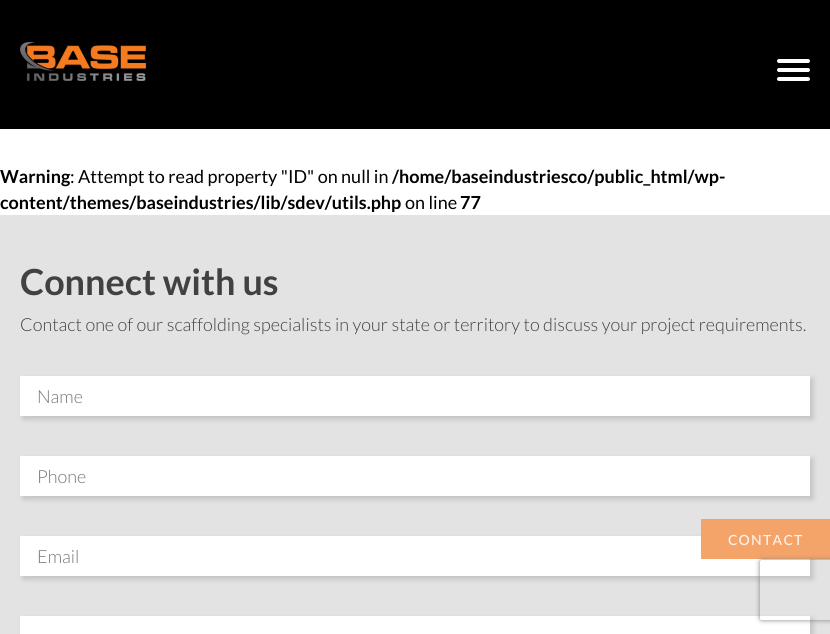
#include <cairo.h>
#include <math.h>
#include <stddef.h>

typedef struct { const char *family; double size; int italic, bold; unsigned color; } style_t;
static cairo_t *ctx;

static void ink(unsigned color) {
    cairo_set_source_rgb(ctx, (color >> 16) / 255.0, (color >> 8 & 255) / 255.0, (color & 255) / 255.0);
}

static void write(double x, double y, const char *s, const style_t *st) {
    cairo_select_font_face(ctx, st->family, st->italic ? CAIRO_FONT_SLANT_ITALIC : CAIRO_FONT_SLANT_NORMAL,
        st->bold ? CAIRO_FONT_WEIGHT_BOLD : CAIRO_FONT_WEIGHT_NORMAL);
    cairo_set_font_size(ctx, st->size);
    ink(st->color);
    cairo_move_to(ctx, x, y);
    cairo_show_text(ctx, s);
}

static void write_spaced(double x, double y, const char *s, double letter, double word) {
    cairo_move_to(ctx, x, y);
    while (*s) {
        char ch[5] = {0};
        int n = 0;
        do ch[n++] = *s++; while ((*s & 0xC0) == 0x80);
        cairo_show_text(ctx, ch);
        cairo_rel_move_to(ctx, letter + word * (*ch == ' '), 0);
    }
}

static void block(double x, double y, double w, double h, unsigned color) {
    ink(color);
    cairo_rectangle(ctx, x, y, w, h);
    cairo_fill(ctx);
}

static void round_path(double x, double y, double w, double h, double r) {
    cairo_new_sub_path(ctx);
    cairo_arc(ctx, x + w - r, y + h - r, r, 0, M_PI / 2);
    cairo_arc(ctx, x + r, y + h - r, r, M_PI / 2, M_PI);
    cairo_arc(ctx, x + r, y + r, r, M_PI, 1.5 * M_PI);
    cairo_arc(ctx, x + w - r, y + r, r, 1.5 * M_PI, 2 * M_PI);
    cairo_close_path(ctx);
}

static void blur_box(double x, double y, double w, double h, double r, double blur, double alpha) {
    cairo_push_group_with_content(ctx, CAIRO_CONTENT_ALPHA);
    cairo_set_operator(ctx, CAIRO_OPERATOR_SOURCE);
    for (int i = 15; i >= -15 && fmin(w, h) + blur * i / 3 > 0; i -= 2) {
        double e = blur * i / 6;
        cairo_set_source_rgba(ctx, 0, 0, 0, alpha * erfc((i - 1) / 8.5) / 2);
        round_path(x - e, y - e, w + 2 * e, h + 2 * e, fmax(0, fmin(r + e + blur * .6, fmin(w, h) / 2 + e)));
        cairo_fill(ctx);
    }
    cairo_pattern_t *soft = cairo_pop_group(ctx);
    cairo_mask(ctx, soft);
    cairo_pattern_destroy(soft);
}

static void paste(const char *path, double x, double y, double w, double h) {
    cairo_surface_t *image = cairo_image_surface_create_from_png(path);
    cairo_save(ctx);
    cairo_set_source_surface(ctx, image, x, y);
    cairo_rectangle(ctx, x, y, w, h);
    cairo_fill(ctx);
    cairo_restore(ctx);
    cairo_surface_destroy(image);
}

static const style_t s1 = {"Lato", 18, 0, 1, 0x000000};
static const style_t s2 = {"Lato", 18, 0, 0, 0x000000};
static const style_t s3 = {"Lato", 36, 0, 1, 0x404242};
static const style_t s4 = {"Lato Light", 18, 0, 0, 0x404242};
static const style_t s5 = {"Lato Light", 18, 0, 0, 0x757575};

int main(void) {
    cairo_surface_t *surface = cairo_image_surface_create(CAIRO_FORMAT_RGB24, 830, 634);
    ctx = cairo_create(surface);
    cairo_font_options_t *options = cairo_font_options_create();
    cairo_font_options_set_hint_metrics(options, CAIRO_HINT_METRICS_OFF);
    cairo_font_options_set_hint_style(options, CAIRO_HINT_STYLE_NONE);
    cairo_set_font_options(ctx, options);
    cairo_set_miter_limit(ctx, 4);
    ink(0xffffff);
    cairo_paint(ctx);
    block(0, 0, 830, 129, 0x000000);
    paste("pic1.png", 20, 42, 126, 39);
    ink(0xffffff);
    round_path(777, 59, 33, 4, 2);
    cairo_fill(ctx);
    round_path(777, 68, 33, 4, 2);
    cairo_fill(ctx);
    round_path(777, 77, 33, 4, 2);
    cairo_fill(ctx);
    write(0, 183, "Warning", &s1);
    write(70, 183, ": Attempt to read property \"ID\" on null in", &s2);
    write(392, 183, "/home/baseindustriesco/public_html/wp-", &s1);
    write(0, 209, "content/themes/baseindustries/lib/sdev/utils.php", &s1);
    write(405, 209, "on line", &s2);
    write(460, 209, "77", &s1);
    block(0, 215, 830, 419, 0xe3e3e3);
    write(20, 295, "Connect with us", &s3);
    write(20, 331, "Contact one of our scaffolding specialists in your state or territory to discuss your project requirements.", &s4);
    ink(0x000000);
    blur_box(23, 379, 790, 40, 0, 3, 0.16);
    block(20, 376, 790, 40, 0xffffff);
    write(37, 403, "Name", &s5);
    ink(0x000000);
    blur_box(23, 459, 790, 40, 0, 3, 0.16);
    block(20, 456, 790, 40, 0xffffff);
    write(37, 483, "Phone", &s5);
    ink(0x000000);
    blur_box(23, 539, 790, 40, 0, 3, 0.16);
    block(20, 536, 790, 40, 0xffffff);
    write(37, 563, "Email", &s5);
    ink(0x000000);
    blur_box(23, 619, 790, 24, 0, 3, 0.16);
    block(20, 616, 790, 18, 0xffffff);
    block(701, 519, 129, 40, 0xf4a369);
    cairo_select_font_face(ctx, "Lato Medium", CAIRO_FONT_SLANT_NORMAL, CAIRO_FONT_WEIGHT_NORMAL);
    cairo_set_font_size(ctx, 14);
    ink(0xfef3ec);
    write_spaced(728, 545, "CONTACT", 1.25, 0);
    cairo_save(ctx);
    cairo_set_fill_rule(ctx, CAIRO_FILL_RULE_EVEN_ODD);
    cairo_new_path(ctx);
    cairo_move_to(ctx, 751, 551);
    cairo_line_to(ctx, 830, 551);
    cairo_line_to(ctx, 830, 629);
    cairo_line_to(ctx, 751, 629);
    cairo_close_path(ctx);
    cairo_move_to(ctx, 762, 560);
    cairo_line_to(ctx, 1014, 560);
    cairo_curve_to(ctx, 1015, 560, 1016, 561, 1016, 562);
    cairo_line_to(ctx, 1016, 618);
    cairo_curve_to(ctx, 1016, 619, 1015, 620, 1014, 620);
    cairo_line_to(ctx, 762, 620);
    cairo_curve_to(ctx, 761, 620, 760, 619, 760, 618);
    cairo_line_to(ctx, 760, 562);
    cairo_curve_to(ctx, 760, 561, 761, 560, 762, 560);
    cairo_close_path(ctx);
    cairo_clip(ctx);
    ink(0x808080);
    blur_box(760, 560, 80, 60, 2, 2.5, 1);
    cairo_restore(ctx);
    cairo_surface_write_to_png(surface, "screenshot.png");
    cairo_font_options_destroy(options);
    cairo_destroy(ctx);
    cairo_surface_destroy(surface);
    return 0;
}
